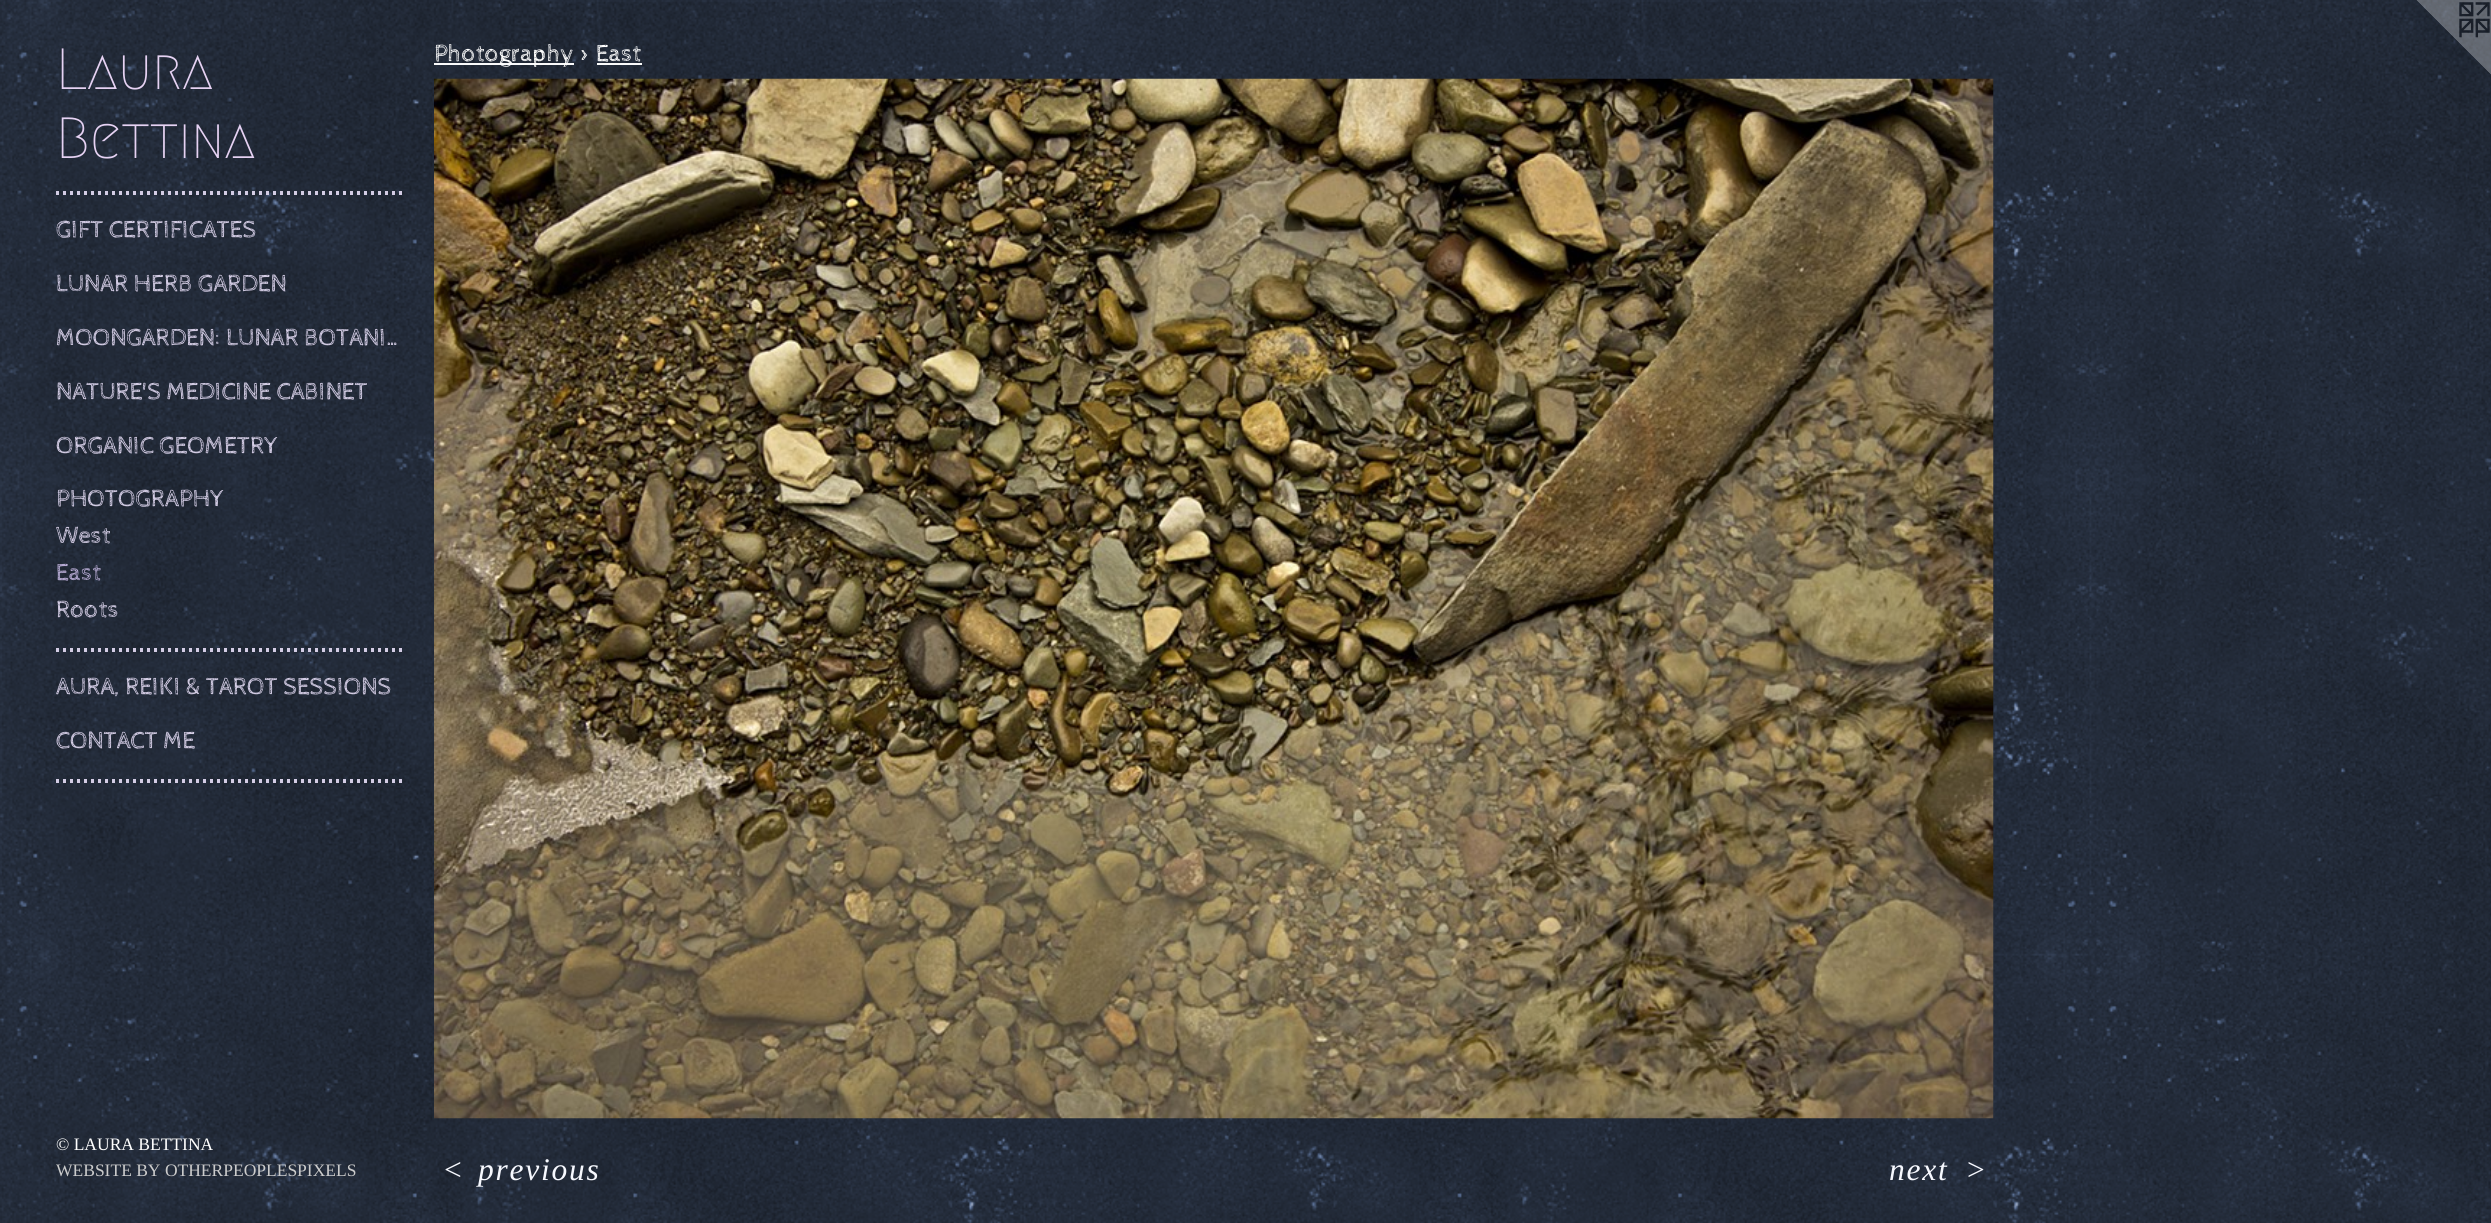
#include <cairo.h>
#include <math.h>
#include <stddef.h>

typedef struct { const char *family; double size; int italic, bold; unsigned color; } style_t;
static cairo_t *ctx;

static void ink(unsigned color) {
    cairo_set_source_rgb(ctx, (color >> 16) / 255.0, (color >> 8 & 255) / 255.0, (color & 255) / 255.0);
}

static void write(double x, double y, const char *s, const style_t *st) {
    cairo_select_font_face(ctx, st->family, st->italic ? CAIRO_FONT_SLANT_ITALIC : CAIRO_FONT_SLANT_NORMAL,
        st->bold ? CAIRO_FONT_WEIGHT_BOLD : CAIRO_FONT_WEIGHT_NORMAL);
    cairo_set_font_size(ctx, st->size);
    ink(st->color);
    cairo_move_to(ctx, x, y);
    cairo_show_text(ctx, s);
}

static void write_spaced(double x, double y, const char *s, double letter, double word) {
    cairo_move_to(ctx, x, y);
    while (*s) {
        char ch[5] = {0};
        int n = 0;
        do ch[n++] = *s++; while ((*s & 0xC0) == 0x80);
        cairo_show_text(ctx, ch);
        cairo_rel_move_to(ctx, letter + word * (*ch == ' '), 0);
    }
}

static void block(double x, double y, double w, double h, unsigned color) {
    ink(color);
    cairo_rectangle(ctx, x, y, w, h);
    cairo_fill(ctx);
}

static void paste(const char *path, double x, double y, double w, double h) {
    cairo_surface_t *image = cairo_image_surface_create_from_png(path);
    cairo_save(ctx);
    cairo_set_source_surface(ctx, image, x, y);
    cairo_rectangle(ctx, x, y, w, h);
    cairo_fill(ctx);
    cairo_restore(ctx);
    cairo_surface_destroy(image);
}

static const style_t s1 = {"Megrim Medium", 58, 0, 0, 0xe6d2f3};
static const style_t s2 = {"Cabin Sketch", 24.5, 0, 0, 0xd4cde5};
static const style_t s3 = {"Cabin Sketch", 24.5, 0, 0, 0xb7abd4};
static const style_t s4 = {"Liberation Serif", 17.5, 0, 0, 0xffffff};
static const style_t s5 = {"Liberation Serif", 17.5, 0, 0, 0xcccccc};
static const style_t s6 = {"Cabin Sketch", 24.5, 0, 0, 0xffffff};

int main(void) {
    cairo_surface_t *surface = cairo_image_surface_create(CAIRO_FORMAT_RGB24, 2491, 1223);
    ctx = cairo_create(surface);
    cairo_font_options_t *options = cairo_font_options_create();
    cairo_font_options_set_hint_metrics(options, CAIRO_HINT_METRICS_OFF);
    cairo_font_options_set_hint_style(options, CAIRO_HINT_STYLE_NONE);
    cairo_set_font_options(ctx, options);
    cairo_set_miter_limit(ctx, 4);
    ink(0xffffff);
    cairo_paint(ctx);
    paste("pic1.png", 0, 0, 2491, 1223);
    write(56, 89, "Laura", &s1);
    write(56, 158, "Bettina", &s1);
    paste("pic2.png", 56, 191, 346, 4);
    write(56, 237, "GIFT CERTIFICATES", &s2);
    write(56, 291, "LUNAR HERB GARDEN", &s2);
    write(56, 345, "MOONGARDEN: LUNAR BOTANI…", &s2);
    write(56, 399, "NATURE'S MEDICINE CABINET", &s2);
    write(56, 453, "ORGANIC GEOMETRY", &s2);
    write(56, 506, "PHOTOGRAPHY", &s2);
    write(56, 543, "West", &s2);
    write(56, 580, "East", &s3);
    write(56, 617, "Roots", &s2);
    paste("pic3.png", 56, 648, 346, 4);
    write(56, 694, "AURA, REIKI & TAROT SESSIONS", &s2);
    write(56, 748, "CONTACT ME", &s2);
    paste("pic4.png", 56, 779, 346, 4);
    write(56, 1150, "© LAURA BETTINA", &s4);
    write(56, 1176, "WEBSITE BY OTHERPEOPLESPIXELS", &s5);
    block(434, 63, 140, 2, 0xfbfbfb);
    write(434, 61, "Photography > East", &s6);
    block(597, 63, 45, 2, 0xfbfbfb);
    paste("pic5.png", 434, 78, 1560, 1041);
    cairo_select_font_face(ctx, "Liberation Serif", CAIRO_FONT_SLANT_ITALIC, CAIRO_FONT_WEIGHT_NORMAL);
    cairo_set_font_size(ctx, 31.5);
    ink(0xf7f9ff);
    write_spaced(442, 1180, "<", 1.75, 0);
    write_spaced(478, 1180, "previous", 1.75, 0);
    write_spaced(1889, 1180, "next", 1.75, 0);
    write_spaced(1965, 1180, ">", 1.75, 0);
    paste("pic6.png", 2416, 0, 75, 74);
    cairo_surface_write_to_png(surface, "screenshot.png");
    cairo_font_options_destroy(options);
    cairo_destroy(ctx);
    cairo_surface_destroy(surface);
    return 0;
}
